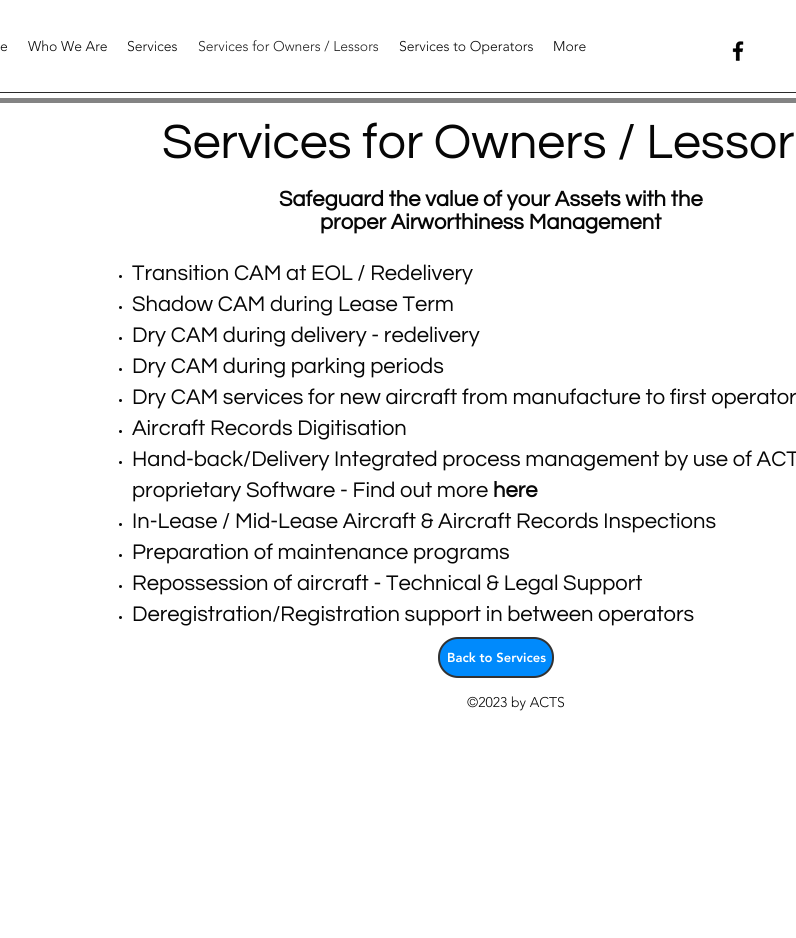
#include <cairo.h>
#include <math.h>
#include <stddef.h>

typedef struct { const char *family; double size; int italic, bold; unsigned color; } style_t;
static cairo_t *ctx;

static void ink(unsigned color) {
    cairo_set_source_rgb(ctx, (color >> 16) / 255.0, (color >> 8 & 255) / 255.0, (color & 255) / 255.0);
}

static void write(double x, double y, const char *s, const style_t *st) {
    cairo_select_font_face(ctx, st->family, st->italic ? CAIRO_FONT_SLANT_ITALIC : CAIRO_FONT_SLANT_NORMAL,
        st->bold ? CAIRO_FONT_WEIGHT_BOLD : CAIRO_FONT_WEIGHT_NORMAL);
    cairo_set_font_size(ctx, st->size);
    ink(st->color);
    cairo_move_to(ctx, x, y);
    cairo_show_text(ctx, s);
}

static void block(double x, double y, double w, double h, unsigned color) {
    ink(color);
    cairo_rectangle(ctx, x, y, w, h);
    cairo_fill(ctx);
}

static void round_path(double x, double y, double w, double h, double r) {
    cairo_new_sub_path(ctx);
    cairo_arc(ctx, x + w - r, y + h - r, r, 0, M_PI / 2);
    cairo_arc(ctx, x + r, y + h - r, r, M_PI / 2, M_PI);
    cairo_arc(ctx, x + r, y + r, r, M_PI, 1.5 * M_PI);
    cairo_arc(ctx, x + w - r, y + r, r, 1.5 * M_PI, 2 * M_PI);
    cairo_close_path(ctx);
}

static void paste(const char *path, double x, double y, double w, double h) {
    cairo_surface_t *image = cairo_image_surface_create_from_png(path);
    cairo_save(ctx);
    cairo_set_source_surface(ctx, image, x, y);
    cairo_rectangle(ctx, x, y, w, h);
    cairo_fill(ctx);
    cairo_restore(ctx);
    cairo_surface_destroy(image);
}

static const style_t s1 = {"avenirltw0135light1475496 Light", 14, 0, 0, 0x060606};
static const style_t s2 = {"avenirltw0135light1475496 Light", 14, 0, 0, 0x202020};
static const style_t s3 = {"Questrial", 50, 0, 0, 0x060606};
static const style_t s4 = {"Questrial", 22, 0, 1, 0x060606};
static const style_t s5 = {"Questrial", 22, 0, 0, 0x060606};
static const style_t s6 = {"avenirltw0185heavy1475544 Black", 13, 0, 0, 0xffffff};

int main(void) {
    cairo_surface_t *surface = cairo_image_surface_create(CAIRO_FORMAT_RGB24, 796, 938);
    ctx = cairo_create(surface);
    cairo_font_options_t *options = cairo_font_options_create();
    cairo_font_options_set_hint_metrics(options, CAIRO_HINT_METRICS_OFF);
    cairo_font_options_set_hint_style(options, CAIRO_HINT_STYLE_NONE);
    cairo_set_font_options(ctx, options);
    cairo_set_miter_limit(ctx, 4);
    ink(0xffffff);
    cairo_paint(ctx);
    write(0, 51, "e", &s1);
    write(28, 51, "Who We Are", &s1);
    write(127, 51, "Services", &s1);
    write(198, 51, "Services for Owners / Lessors", &s2);
    write(399, 51, "Services to Operators", &s1);
    write(553, 51, "More", &s1);
    paste("pic1.png", 732, 41, 12, 20);
    block(0, 92, 796, 1, 0x2b2b2b);
    block(0, 98, 796, 5, 0x838383);
    write(162, 158, "Services for Owners / Lessor", &s3);
    write(279, 206, "Safeguard the value of your Assets with the", &s4);
    write(320, 229, "proper Airworthiness Management", &s4);
    cairo_new_path(ctx);
    cairo_arc(ctx, 120.5, 276.5, 1.5, 0, 2 * M_PI);
    cairo_fill(ctx);
    write(132, 280, "Transition CAM at EOL / Redelivery", &s5);
    cairo_new_path(ctx);
    cairo_arc(ctx, 120.5, 307.5, 1.5, 0, 2 * M_PI);
    cairo_fill(ctx);
    write(132, 311, "Shadow CAM during Lease Term", &s5);
    cairo_new_path(ctx);
    cairo_arc(ctx, 120.5, 338.5, 1.5, 0, 2 * M_PI);
    cairo_fill(ctx);
    write(132, 342, "Dry CAM during delivery - redelivery", &s5);
    cairo_new_path(ctx);
    cairo_arc(ctx, 120.5, 369.5, 1.5, 0, 2 * M_PI);
    cairo_fill(ctx);
    write(132, 373, "Dry CAM during parking periods", &s5);
    cairo_new_path(ctx);
    cairo_arc(ctx, 120.5, 400.5, 1.5, 0, 2 * M_PI);
    cairo_fill(ctx);
    write(132, 404, "Dry CAM services for new aircraft from manufacture to first operator", &s5);
    cairo_new_path(ctx);
    cairo_arc(ctx, 120.5, 431.5, 1.5, 0, 2 * M_PI);
    cairo_fill(ctx);
    write(132, 435, "Aircraft Records Digitisation", &s5);
    cairo_new_path(ctx);
    cairo_arc(ctx, 120.5, 462.5, 1.5, 0, 2 * M_PI);
    cairo_fill(ctx);
    write(132, 466, "Hand-back/Delivery Integrated process management by use of ACT", &s5);
    write(132, 497, "proprietary Software - Find out more", &s5);
    write(493, 497, "here", &s4);
    cairo_new_path(ctx);
    cairo_arc(ctx, 120.5, 524.5, 1.5, 0, 2 * M_PI);
    cairo_fill(ctx);
    write(132, 528, "In-Lease / Mid-Lease Aircraft & Aircraft Records Inspections", &s5);
    cairo_new_path(ctx);
    cairo_arc(ctx, 120.5, 555.5, 1.5, 0, 2 * M_PI);
    cairo_fill(ctx);
    write(132, 559, "Preparation of maintenance programs", &s5);
    cairo_new_path(ctx);
    cairo_arc(ctx, 120.5, 586.5, 1.5, 0, 2 * M_PI);
    cairo_fill(ctx);
    write(132, 590, "Repossession of aircraft - Technical & Legal Support", &s5);
    cairo_new_path(ctx);
    cairo_arc(ctx, 120.5, 617.5, 1.5, 0, 2 * M_PI);
    cairo_fill(ctx);
    write(132, 621, "Deregistration/Registration support in between operators", &s5);
    ink(0x008afc);
    round_path(439, 638, 114, 39, 19);
    cairo_fill_preserve(ctx);
    ink(0x323232);
    cairo_stroke(ctx);
    write(447, 662, "Back to Services", &s6);
    write(467, 707, "©2023 by ACTS", &s1);
    cairo_surface_write_to_png(surface, "screenshot.png");
    cairo_font_options_destroy(options);
    cairo_destroy(ctx);
    cairo_surface_destroy(surface);
    return 0;
}
